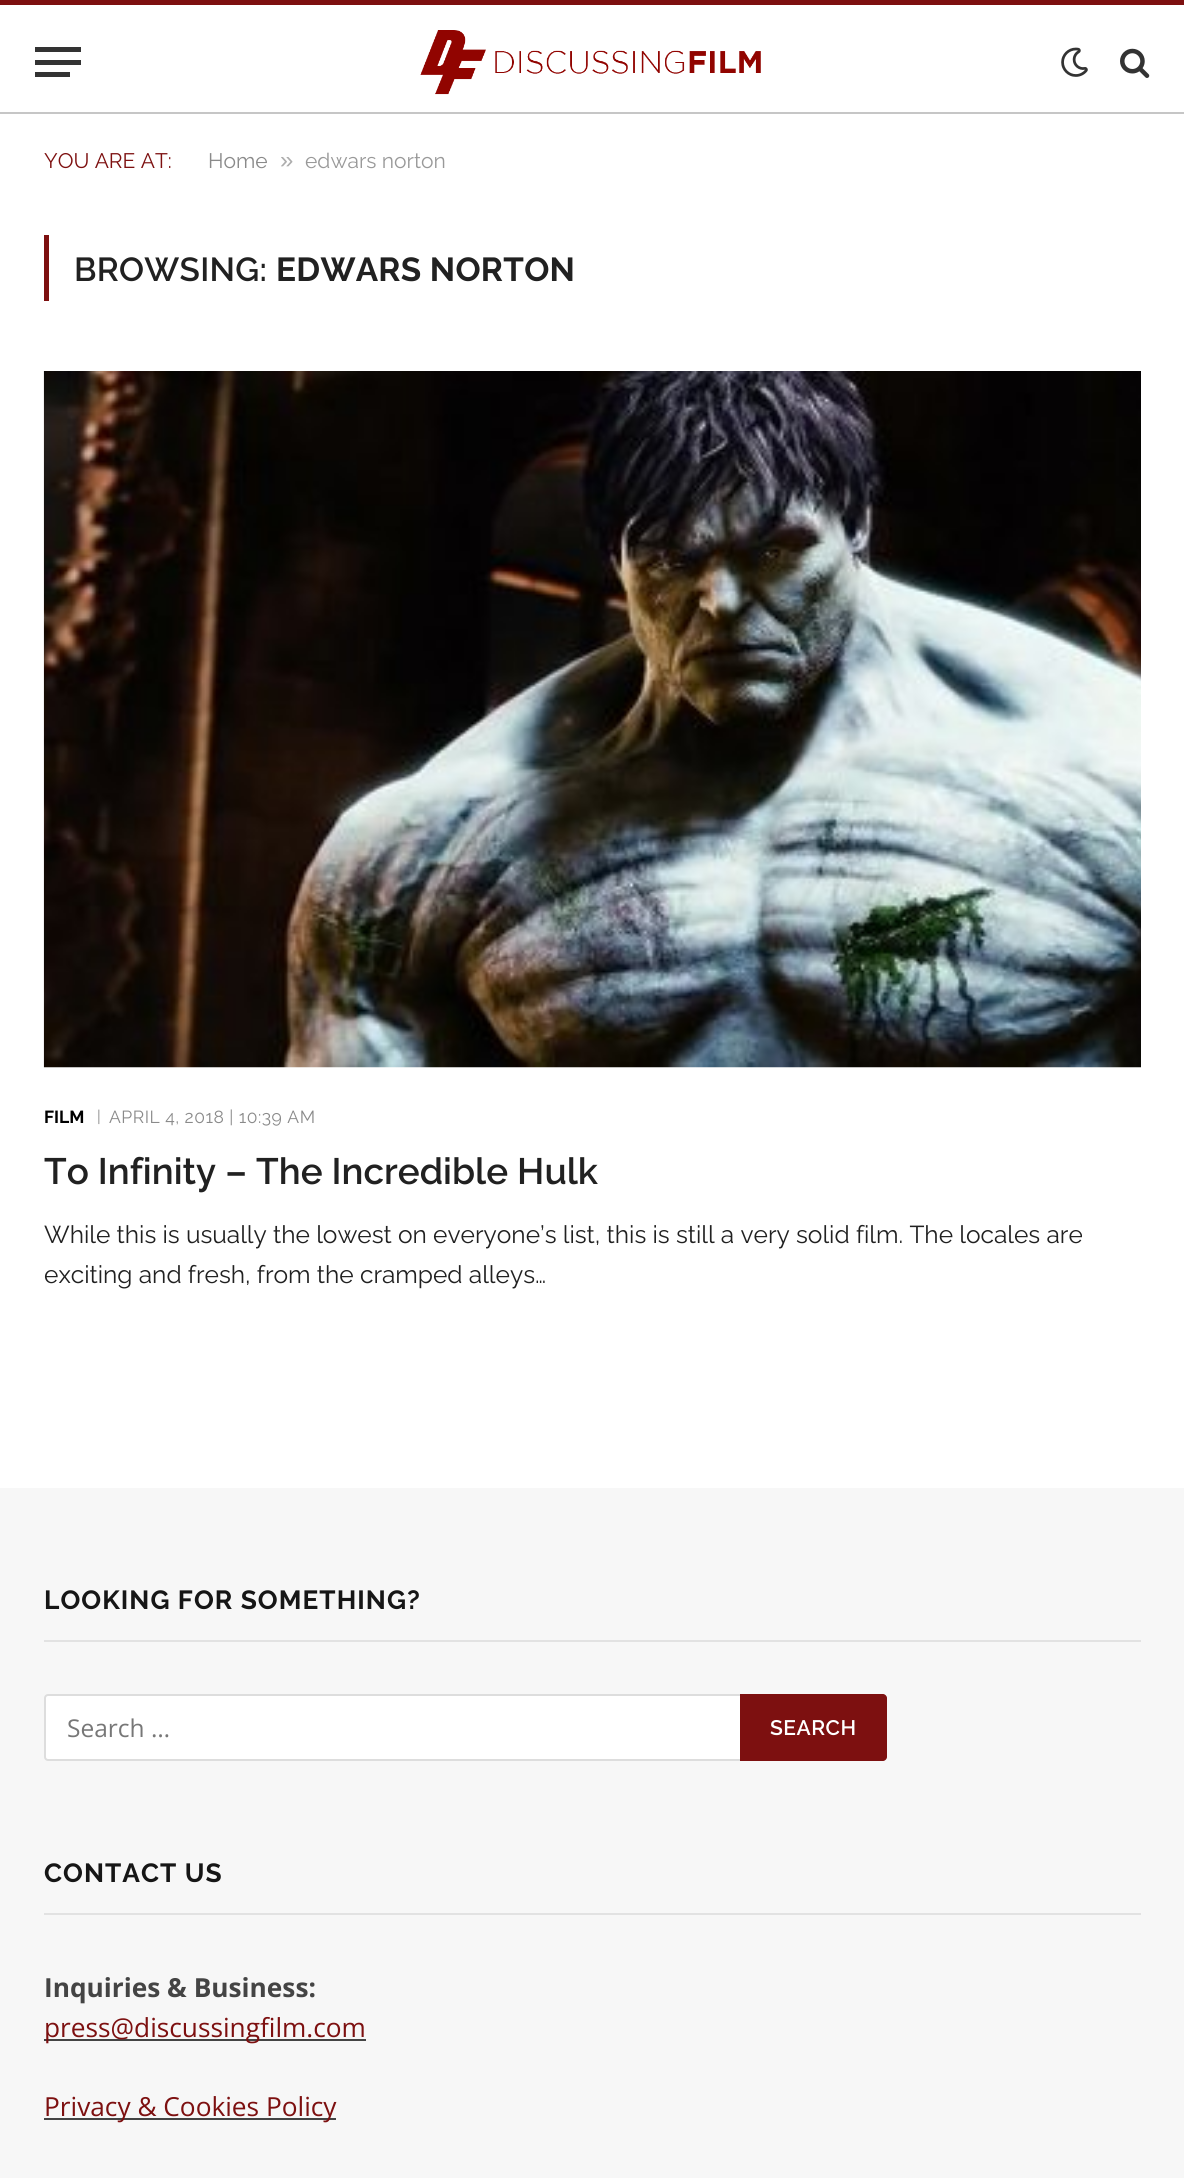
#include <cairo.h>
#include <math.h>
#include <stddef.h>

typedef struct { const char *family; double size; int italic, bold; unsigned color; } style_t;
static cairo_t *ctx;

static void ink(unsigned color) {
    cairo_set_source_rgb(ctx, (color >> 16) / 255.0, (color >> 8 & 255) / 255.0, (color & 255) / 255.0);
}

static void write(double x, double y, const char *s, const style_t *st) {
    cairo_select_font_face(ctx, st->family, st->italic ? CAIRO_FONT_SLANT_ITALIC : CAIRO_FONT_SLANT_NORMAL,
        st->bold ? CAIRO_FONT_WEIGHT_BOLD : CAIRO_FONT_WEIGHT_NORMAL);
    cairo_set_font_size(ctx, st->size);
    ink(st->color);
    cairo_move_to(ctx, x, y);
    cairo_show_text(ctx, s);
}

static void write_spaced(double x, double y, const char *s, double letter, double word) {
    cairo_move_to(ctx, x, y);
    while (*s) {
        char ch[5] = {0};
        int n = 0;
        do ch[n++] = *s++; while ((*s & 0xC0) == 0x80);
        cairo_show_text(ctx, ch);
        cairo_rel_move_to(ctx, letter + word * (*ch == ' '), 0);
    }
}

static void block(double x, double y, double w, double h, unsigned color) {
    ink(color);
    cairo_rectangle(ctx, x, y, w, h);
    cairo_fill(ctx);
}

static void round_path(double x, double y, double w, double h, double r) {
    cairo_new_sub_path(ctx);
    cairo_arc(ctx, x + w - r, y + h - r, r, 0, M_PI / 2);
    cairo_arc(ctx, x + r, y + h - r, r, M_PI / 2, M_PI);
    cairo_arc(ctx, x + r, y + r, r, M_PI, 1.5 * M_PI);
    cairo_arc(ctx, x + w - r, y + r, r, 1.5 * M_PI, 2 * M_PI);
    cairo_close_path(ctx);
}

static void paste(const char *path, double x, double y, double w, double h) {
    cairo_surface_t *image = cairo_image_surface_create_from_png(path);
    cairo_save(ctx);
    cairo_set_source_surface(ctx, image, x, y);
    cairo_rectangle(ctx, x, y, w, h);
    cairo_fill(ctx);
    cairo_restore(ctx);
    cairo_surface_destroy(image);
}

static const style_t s1 = {"Raleway", 21, 0, 0, 0x7d1010};
static const style_t s2 = {"Raleway", 21, 0, 0, 0x8a8a8a};
static const style_t s3 = {"Liberation Sans", 24, 0, 0, 0xadadad};
static const style_t s4 = {"Raleway", 21, 0, 0, 0x999999};
static const style_t s5 = {"Raleway", 17.5, 0, 1, 0x000000};
static const style_t s6 = {"Raleway", 16, 0, 0, 0x8a8a8a};
static const style_t s7 = {"Raleway SemiBold", 36.75, 0, 0, 0x212121};
static const style_t s8 = {"Raleway", 24.5, 0, 0, 0x212121};
static const style_t s9 = {"Open Sans", 24.5, 0, 0, 0x777777};
static const style_t s10 = {"Open Sans", 26.25, 0, 1, 0x444444};
static const style_t s11 = {"Open Sans", 26.25, 0, 0, 0x7d1010};

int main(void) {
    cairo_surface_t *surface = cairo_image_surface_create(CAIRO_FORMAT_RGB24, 1184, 2178);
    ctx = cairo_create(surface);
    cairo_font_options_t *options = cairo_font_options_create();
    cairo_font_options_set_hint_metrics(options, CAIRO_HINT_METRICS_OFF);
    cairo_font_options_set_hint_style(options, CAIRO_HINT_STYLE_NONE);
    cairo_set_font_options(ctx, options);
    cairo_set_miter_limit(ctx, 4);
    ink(0xffffff);
    cairo_paint(ctx);
    block(0, 0, 1184, 5, 0x7d1010);
    block(0, 112, 1184, 2, 0xc6c6c6);
    block(35, 72, 35, 5, 0x333333);
    block(35, 47, 46, 5, 0x333333);
    block(35, 60, 46, 5, 0x333333);
    paste("pic1.png", 420, 30, 341, 65);
    paste("pic2.png", 1061, 47, 27, 30);
    paste("pic3.png", 1120, 48, 30, 30);
    write(44, 168, "YOU ARE AT:", &s1);
    write(208, 168, "Home", &s2);
    write(280, 168, "»", &s3);
    write(305, 168, "edwars norton", &s4);
    block(44, 235, 5, 66, 0x7d1010);
    cairo_select_font_face(ctx, "Raleway SemiBold", CAIRO_FONT_SLANT_NORMAL, CAIRO_FONT_WEIGHT_NORMAL);
    cairo_set_font_size(ctx, 33.25);
    ink(0x212121);
    write_spaced(74, 281, "BROWSING:", 0.3, 0);
    cairo_select_font_face(ctx, "Raleway", CAIRO_FONT_SLANT_NORMAL, CAIRO_FONT_WEIGHT_BOLD);
    write_spaced(276, 281, "EDWARS NORTON", 0.3, 0);
    paste("pic4.png", 43, 371, 1098, 697);
    write(44, 1123, "FILM", &s5);
    write(97, 1122, "|", &s6);
    cairo_set_font_size(ctx, 17.5);
    write_spaced(109, 1123, "APRIL 4, 2018 | 10:39 AM", 0.5, 0);
    write(44, 1184, "To Infinity – The Incredible Hulk", &s7);
    write(44, 1243, "While this is usually the lowest on everyone’s list, this is still a very solid film. The locales are", &s8);
    write(44, 1283, "exciting and fresh, from the cramped alleys…", &s8);
    block(0, 1488, 1184, 690, 0xf7f7f7);
    block(44, 1640, 1097, 2, 0xe2e2e2);
    cairo_select_font_face(ctx, "Raleway", CAIRO_FONT_SLANT_NORMAL, CAIRO_FONT_WEIGHT_BOLD);
    cairo_set_font_size(ctx, 26.25);
    ink(0x161616);
    write_spaced(44, 1609, "LOOKING FOR SOMETHING?", 1.05, 0);
    ink(0xffffff);
    round_path(45, 1695, 698, 65, 3);
    cairo_fill_preserve(ctx);
    ink(0xdddddd);
    cairo_stroke(ctx);
    write(67, 1737, "Search …", &s9);
    ink(0x7d1010);
    cairo_new_path(ctx);
    cairo_move_to(ctx, 740, 1694);
    cairo_line_to(ctx, 883, 1694);
    cairo_curve_to(ctx, 885, 1694, 887, 1696, 887, 1698);
    cairo_line_to(ctx, 887, 1757);
    cairo_curve_to(ctx, 887, 1759, 885, 1761, 883, 1761);
    cairo_line_to(ctx, 740, 1761);
    cairo_close_path(ctx);
    cairo_fill(ctx);
    cairo_select_font_face(ctx, "Raleway SemiBold", CAIRO_FONT_SLANT_NORMAL, CAIRO_FONT_WEIGHT_NORMAL);
    cairo_set_font_size(ctx, 21);
    ink(0xffffff);
    write_spaced(770, 1735, "SEARCH", 0.5, 0);
    block(44, 1913, 1097, 2, 0xe2e2e2);
    cairo_select_font_face(ctx, "Raleway", CAIRO_FONT_SLANT_NORMAL, CAIRO_FONT_WEIGHT_BOLD);
    cairo_set_font_size(ctx, 26.25);
    ink(0x161616);
    write_spaced(44, 1882, "CONTACT US", 1.05, 0);
    write(44, 1997, "Inquiries & Business:", &s10);
    block(44, 2039, 322, 2, 0x444444);
    write(44, 2037, "press@discussingfilm.com", &s11);
    block(44, 2118, 292, 2, 0x444444);
    write(44, 2116, "Privacy & Cookies Policy", &s11);
    cairo_surface_write_to_png(surface, "screenshot.png");
    cairo_font_options_destroy(options);
    cairo_destroy(ctx);
    cairo_surface_destroy(surface);
    return 0;
}
